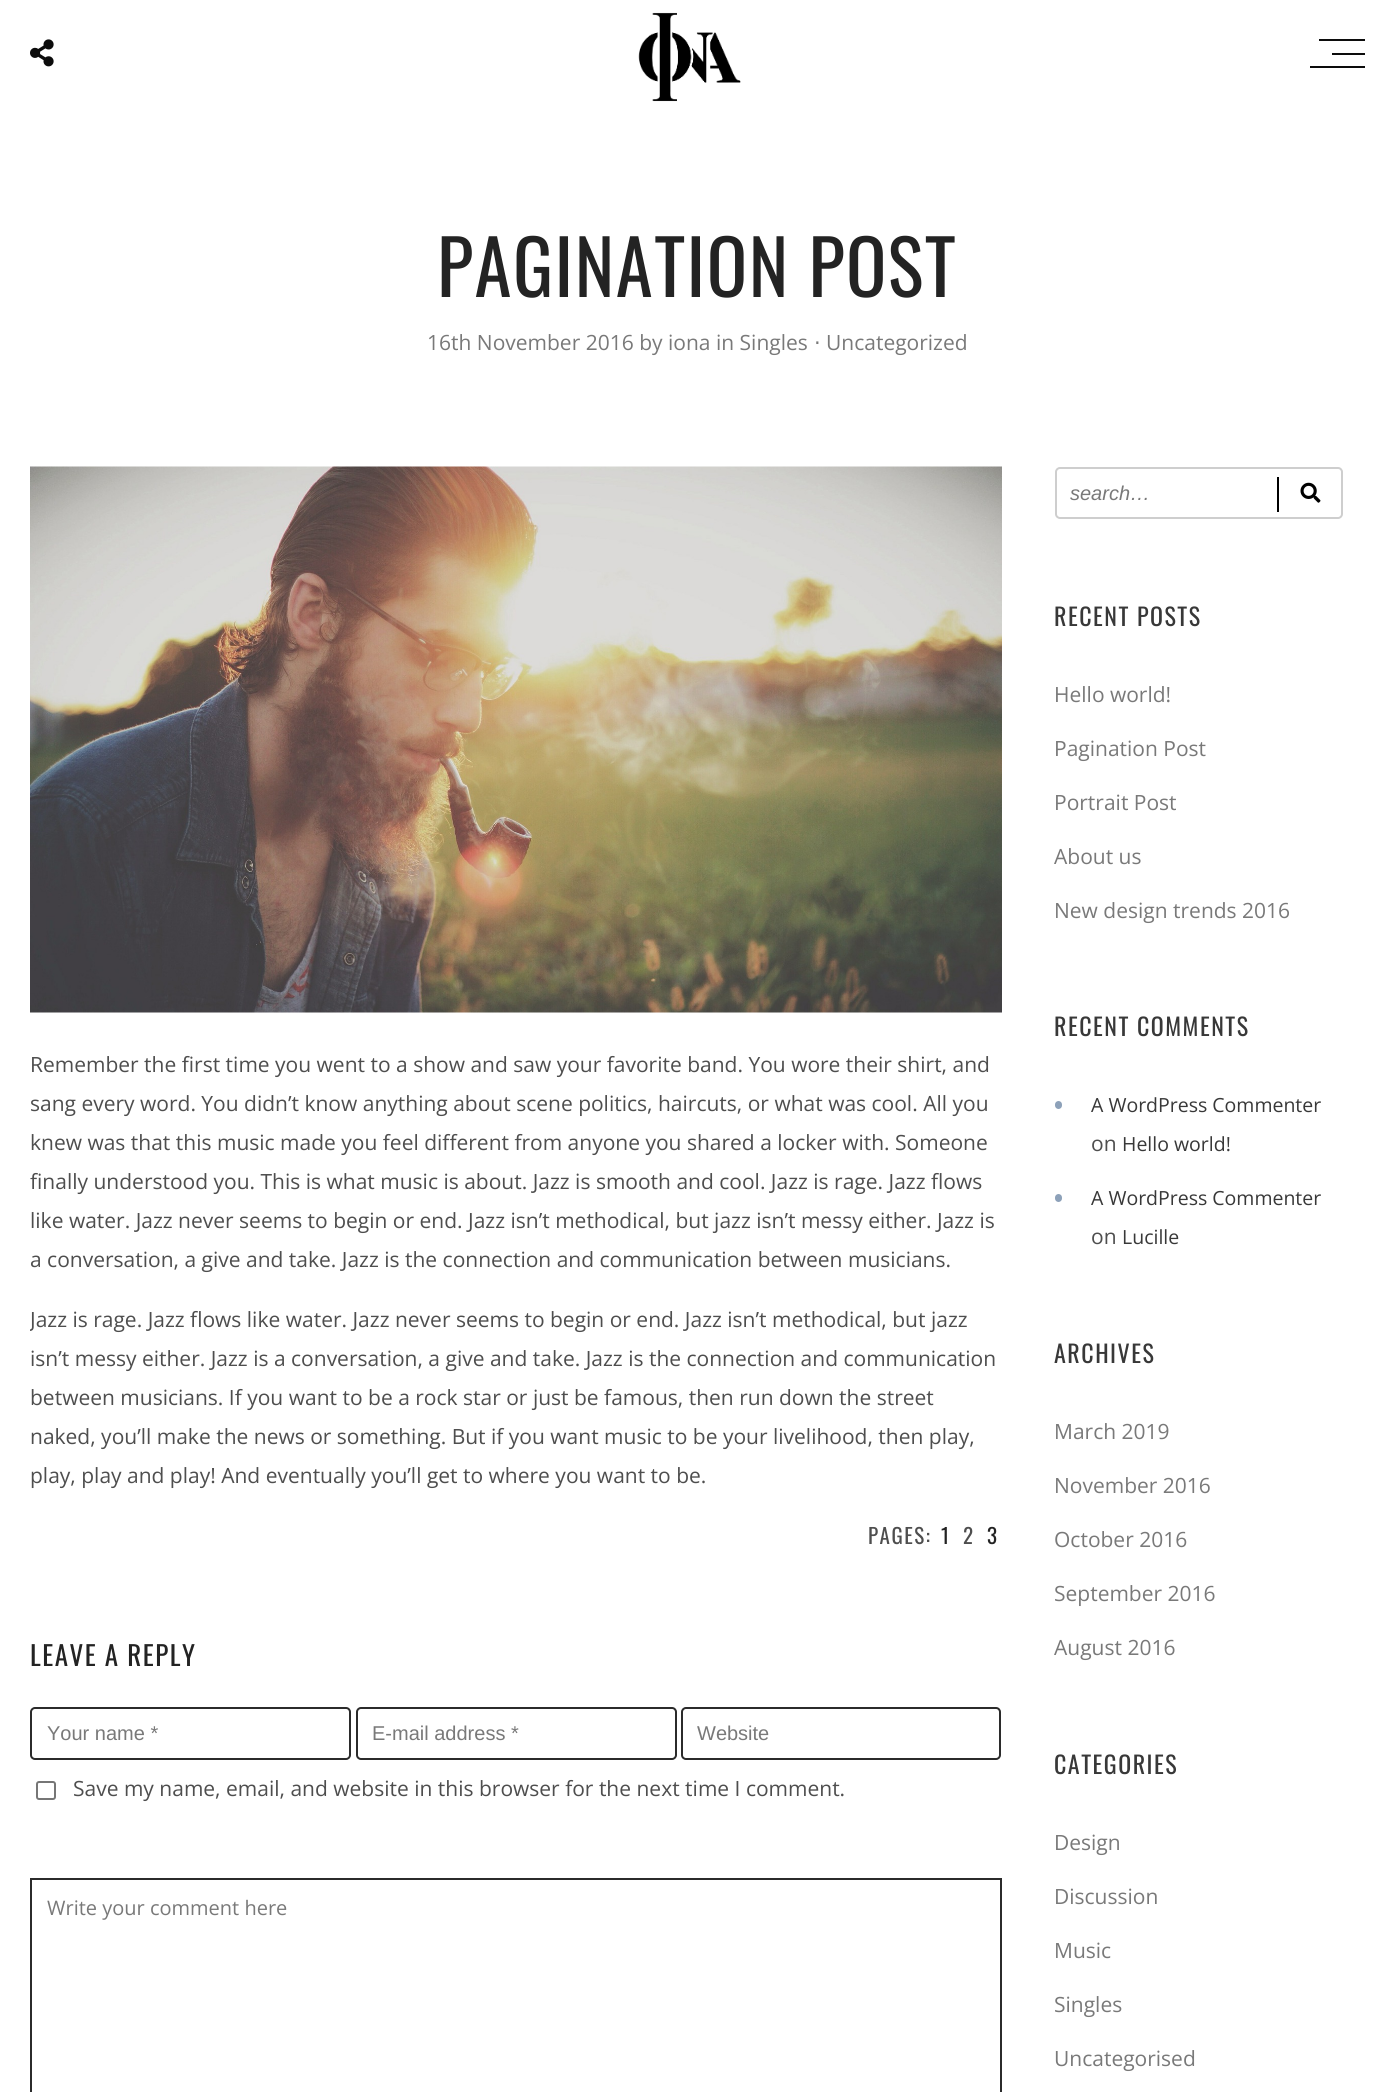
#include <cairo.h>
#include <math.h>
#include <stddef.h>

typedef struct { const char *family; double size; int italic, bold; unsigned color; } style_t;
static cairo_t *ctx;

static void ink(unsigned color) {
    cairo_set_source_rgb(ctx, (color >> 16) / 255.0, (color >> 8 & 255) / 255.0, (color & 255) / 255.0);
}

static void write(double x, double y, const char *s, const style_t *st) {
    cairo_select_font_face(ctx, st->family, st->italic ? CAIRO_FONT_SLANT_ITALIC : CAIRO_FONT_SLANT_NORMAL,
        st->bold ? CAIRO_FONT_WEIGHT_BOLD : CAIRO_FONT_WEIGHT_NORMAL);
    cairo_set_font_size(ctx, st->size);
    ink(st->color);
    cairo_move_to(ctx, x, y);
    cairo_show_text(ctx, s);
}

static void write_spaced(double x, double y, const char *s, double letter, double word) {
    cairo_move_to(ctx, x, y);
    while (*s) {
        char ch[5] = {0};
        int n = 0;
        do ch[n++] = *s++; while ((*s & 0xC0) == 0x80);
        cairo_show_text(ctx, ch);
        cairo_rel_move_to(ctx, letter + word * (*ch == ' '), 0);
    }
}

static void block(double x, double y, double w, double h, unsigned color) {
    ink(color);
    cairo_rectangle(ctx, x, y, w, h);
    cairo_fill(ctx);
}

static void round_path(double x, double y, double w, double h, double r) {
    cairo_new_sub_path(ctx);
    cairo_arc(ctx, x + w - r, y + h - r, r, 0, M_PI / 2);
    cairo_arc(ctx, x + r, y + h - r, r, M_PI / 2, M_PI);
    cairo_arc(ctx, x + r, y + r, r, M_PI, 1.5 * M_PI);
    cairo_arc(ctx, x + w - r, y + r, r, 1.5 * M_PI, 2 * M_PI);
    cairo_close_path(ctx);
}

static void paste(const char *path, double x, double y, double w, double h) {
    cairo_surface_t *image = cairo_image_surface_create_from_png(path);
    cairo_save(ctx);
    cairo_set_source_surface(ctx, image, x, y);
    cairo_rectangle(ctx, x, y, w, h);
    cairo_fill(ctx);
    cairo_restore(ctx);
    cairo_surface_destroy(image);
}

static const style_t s1 = {"Open Sans", 21, 0, 0, 0x797979};
static const style_t s2 = {"DejaVu Sans", 21, 0, 0, 0x797979};
static const style_t s3 = {"Open Sans", 21, 0, 0, 0x4e4e4e};
static const style_t s4 = {"Liberation Sans", 20, 0, 0, 0x797979};
static const style_t s5 = {"Open Sans", 20, 0, 0, 0x797979};
static const style_t s6 = {"Liberation Sans", 20, 1, 0, 0x797979};
static const style_t s7 = {"Open Sans", 19.5, 0, 0, 0x383838};

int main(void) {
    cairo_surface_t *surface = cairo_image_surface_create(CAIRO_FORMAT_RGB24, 1395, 2092);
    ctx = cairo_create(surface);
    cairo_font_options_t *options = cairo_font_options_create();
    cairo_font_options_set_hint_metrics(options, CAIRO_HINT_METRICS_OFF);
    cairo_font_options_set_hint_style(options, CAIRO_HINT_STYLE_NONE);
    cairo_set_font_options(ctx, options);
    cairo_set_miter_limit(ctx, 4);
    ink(0xffffff);
    cairo_paint(ctx);
    paste("pic1.png", 30, 39, 24, 28);
    paste("pic2.png", 638, 12, 103, 90);
    block(1319, 39, 46, 2, 0x0c0c0c);
    block(1332, 53, 33, 2, 0x0c0c0c);
    block(1310, 66, 55, 2, 0x0c0c0c);
    cairo_select_font_face(ctx, "Oswald", CAIRO_FONT_SLANT_NORMAL, CAIRO_FONT_WEIGHT_NORMAL);
    cairo_set_font_size(ctx, 75);
    ink(0x232323);
    write_spaced(437, 297, "PAGINATION POST", 1.5, 0);
    write(427, 350, "16th November 2016 by iona in Singles", &s1);
    write(814, 350, "⋅", &s2);
    write(826, 350, "Uncategorized", &s1);
    paste("pic3.png", 30, 466, 972, 547);
    write(30, 1072, "Remember the first time you went to a show and saw your favorite band. You wore their shirt, and", &s3);
    write(30, 1111, "sang every word. You didn’t know anything about scene politics, haircuts, or what was cool. All you", &s3);
    write(30, 1150, "knew was that this music made you feel different from anyone you shared a locker with. Someone", &s3);
    write(30, 1189, "finally understood you. This is what music is about. Jazz is smooth and cool. Jazz is rage. Jazz flows", &s3);
    write(30, 1228, "like water. Jazz never seems to begin or end. Jazz isn’t methodical, but jazz isn’t messy either. Jazz is", &s3);
    write(30, 1267, "a conversation, a give and take. Jazz is the connection and communication between musicians.", &s3);
    cairo_save(ctx);
    cairo_rectangle(ctx, 30, 437, 1002, 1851);
    cairo_clip(ctx);
    write(30, 1327, "Jazz is rage. Jazz flows like water. Jazz never seems to begin or end. Jazz isn’t methodical, but jazz", &s3);
    cairo_restore(ctx);
    write(30, 1366, "isn’t messy either. Jazz is a conversation, a give and take. Jazz is the connection and communication", &s3);
    write(30, 1405, "between musicians. If you want to be a rock star or just be famous, then run down the street", &s3);
    write(30, 1444, "naked, you’ll make the news or something. But if you want music to be your livelihood, then play,", &s3);
    write(30, 1483, "play, play and play! And eventually you’ll get to where you want to be.", &s3);
    cairo_select_font_face(ctx, "Oswald", CAIRO_FONT_SLANT_NORMAL, CAIRO_FONT_WEIGHT_NORMAL);
    write_spaced(868, 1544, "PAGES:", 1.5, 0);
    ink(0x232323);
    write_spaced(941, 1544, "1", 1.5, 0);
    ink(0x4e4e4e);
    write_spaced(963, 1544, "2", 1.5, 0);
    ink(0x232323);
    write_spaced(987, 1544, "3", 1.5, 0);
    cairo_set_font_size(ctx, 27);
    write_spaced(30, 1666, "LEAVE A REPLY", 1.5, 0);
    round_path(31, 1708, 319, 51, 4);
    ink(0x2b2b2b);
    cairo_stroke(ctx);
    write(47, 1740, "Your name *", &s4);
    round_path(357, 1708, 319, 51, 4);
    ink(0x2b2b2b);
    cairo_stroke(ctx);
    write(372, 1740, "E-mail address *", &s4);
    round_path(682, 1708, 318, 51, 4);
    ink(0x2b2b2b);
    cairo_stroke(ctx);
    write(697, 1740, "Website", &s4);
    round_path(37, 1782, 18, 17, 2);
    ink(0x767676);
    cairo_stroke(ctx);
    write(73, 1796, "Save my name, email, and website in this browser for the next time I comment.", &s3);
    cairo_rectangle(ctx, 31, 1879, 970, 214);
    ink(0x2b2b2b);
    cairo_stroke(ctx);
    write(47, 1915, "Write your comment here", &s5);
    round_path(1056, 468, 286, 50, 4);
    ink(0xcecece);
    cairo_stroke(ctx);
    write(1070, 500, "search…", &s6);
    block(1277, 477, 2, 35, 0x000000);
    paste("pic4.png", 1300, 482, 21, 21);
    cairo_select_font_face(ctx, "Oswald", CAIRO_FONT_SLANT_NORMAL, CAIRO_FONT_WEIGHT_NORMAL);
    cairo_set_font_size(ctx, 24);
    ink(0x383838);
    write_spaced(1054, 626, "RECENT POSTS", 1.5, 0);
    write(1054, 702, "Hello world!", &s1);
    write(1054, 756, "Pagination Post", &s1);
    write(1054, 810, "Portrait Post", &s1);
    write(1054, 864, "About us", &s1);
    write(1054, 918, "New design trends 2016", &s1);
    cairo_select_font_face(ctx, "Oswald", CAIRO_FONT_SLANT_NORMAL, CAIRO_FONT_WEIGHT_NORMAL);
    cairo_set_font_size(ctx, 24);
    ink(0x383838);
    write_spaced(1054, 1036, "RECENT COMMENTS", 1.5, 0);
    ink(0x8da1b9);
    round_path(1055, 1101, 7, 8, 3.5);
    cairo_fill(ctx);
    write(1091, 1112, "A WordPress Commenter", &s7);
    write(1091, 1151, "on", &s3);
    write(1122, 1151, "Hello world!", &s7);
    ink(0x8da1b9);
    round_path(1055, 1194, 7, 8, 3.5);
    cairo_fill(ctx);
    write(1091, 1205, "A WordPress Commenter", &s7);
    write(1091, 1244, "on", &s3);
    write(1122, 1244, "Lucille", &s7);
    cairo_select_font_face(ctx, "Oswald", CAIRO_FONT_SLANT_NORMAL, CAIRO_FONT_WEIGHT_NORMAL);
    cairo_set_font_size(ctx, 24);
    write_spaced(1054, 1363, "ARCHIVES", 1.5, 0);
    write(1054, 1439, "March 2019", &s1);
    write(1054, 1493, "November 2016", &s1);
    write(1054, 1547, "October 2016", &s1);
    write(1054, 1601, "September 2016", &s1);
    write(1054, 1655, "August 2016", &s1);
    cairo_select_font_face(ctx, "Oswald", CAIRO_FONT_SLANT_NORMAL, CAIRO_FONT_WEIGHT_NORMAL);
    cairo_set_font_size(ctx, 24);
    ink(0x383838);
    write_spaced(1054, 1774, "CATEGORIES", 1.5, 0);
    write(1054, 1850, "Design", &s1);
    write(1054, 1904, "Discussion", &s1);
    write(1054, 1958, "Music", &s1);
    write(1054, 2012, "Singles", &s1);
    write(1054, 2066, "Uncategorised", &s1);
    cairo_surface_write_to_png(surface, "screenshot.png");
    cairo_font_options_destroy(options);
    cairo_destroy(ctx);
    cairo_surface_destroy(surface);
    return 0;
}
